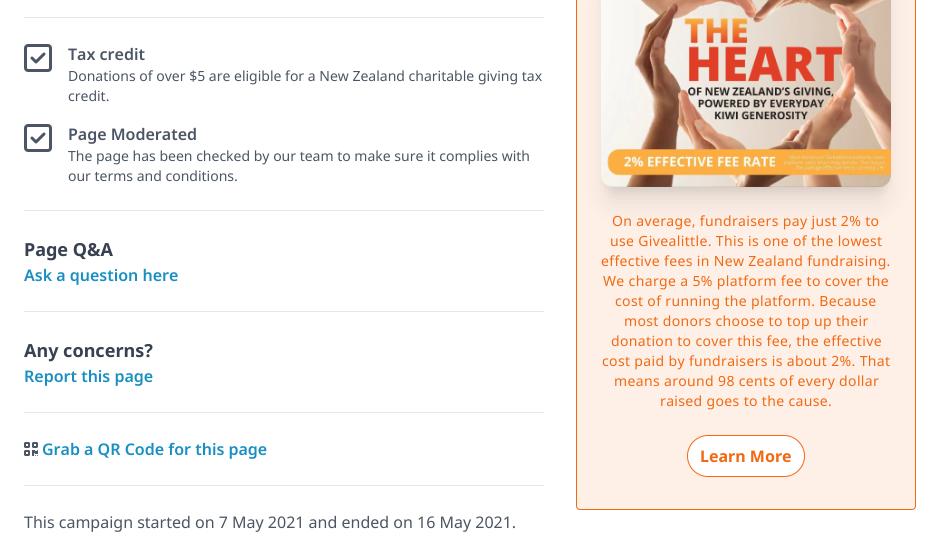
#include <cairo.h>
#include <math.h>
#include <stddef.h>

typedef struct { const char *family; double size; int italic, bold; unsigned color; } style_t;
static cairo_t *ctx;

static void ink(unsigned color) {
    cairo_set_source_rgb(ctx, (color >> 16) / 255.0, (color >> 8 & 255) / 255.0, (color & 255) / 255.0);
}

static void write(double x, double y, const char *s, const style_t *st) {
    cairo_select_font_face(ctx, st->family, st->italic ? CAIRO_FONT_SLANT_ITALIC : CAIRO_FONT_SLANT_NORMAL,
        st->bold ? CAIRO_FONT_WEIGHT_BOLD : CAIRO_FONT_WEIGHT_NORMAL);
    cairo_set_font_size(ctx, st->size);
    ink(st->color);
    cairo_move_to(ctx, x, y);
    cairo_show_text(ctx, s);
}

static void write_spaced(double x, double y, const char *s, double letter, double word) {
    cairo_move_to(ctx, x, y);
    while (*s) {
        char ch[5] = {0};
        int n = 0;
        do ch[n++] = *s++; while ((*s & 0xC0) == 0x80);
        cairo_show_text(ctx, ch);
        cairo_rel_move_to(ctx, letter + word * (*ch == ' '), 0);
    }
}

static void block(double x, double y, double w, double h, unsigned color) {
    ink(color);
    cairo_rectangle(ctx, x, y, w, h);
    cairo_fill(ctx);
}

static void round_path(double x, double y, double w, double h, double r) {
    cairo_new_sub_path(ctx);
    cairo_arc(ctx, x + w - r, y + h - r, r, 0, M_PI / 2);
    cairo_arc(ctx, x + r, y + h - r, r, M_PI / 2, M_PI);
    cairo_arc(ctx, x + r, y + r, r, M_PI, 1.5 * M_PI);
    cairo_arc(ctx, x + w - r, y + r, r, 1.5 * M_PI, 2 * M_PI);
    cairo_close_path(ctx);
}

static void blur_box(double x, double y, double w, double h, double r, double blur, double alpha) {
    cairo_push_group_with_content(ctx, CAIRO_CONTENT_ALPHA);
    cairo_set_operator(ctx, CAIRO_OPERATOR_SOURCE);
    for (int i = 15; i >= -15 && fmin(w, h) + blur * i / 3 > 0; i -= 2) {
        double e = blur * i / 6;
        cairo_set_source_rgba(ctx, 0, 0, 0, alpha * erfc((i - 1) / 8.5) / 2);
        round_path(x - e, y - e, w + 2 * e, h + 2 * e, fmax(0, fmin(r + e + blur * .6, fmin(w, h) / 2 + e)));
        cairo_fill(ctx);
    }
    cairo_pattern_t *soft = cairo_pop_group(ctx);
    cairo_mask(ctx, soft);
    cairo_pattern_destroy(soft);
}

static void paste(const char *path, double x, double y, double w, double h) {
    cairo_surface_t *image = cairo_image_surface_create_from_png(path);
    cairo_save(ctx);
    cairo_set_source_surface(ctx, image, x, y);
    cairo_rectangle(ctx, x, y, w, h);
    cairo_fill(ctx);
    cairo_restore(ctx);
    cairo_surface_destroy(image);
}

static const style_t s1 = {"Noto Sans SemiBold", 16, 0, 0, 0x4b5563};
static const style_t s2 = {"Noto Sans", 14, 0, 0, 0x4b5563};
static const style_t s3 = {"Noto Sans", 18, 0, 1, 0x374151};
static const style_t s4 = {"Noto Sans SemiBold", 16, 0, 0, 0x198fc1};
static const style_t s5 = {"Noto Sans", 16, 0, 0, 0x4b5563};
static const style_t s6 = {"Noto Sans", 16, 0, 1, 0xf16913};

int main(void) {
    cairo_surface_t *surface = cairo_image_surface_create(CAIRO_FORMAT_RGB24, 940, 537);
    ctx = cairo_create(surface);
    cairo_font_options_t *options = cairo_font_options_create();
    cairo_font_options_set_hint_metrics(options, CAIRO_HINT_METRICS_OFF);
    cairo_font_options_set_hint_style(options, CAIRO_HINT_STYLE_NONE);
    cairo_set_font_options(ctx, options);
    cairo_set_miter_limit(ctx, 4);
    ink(0xffffff);
    cairo_paint(ctx);
    block(24, 17, 520, 1, 0xe5e7eb);
    paste("pic1.png", 24, 44, 28, 28);
    write(68, 60, "Tax credit", &s1);
    write(68, 81, "Donations of over $5 are eligible for a New Zealand charitable giving tax", &s2);
    write(68, 101, "credit.", &s2);
    paste("pic1.png", 24, 124, 28, 28);
    write(68, 140, "Page Moderated", &s1);
    write(68, 161, "The page has been checked by our team to make sure it complies with", &s2);
    write(68, 181, "our terms and conditions.", &s2);
    block(24, 210, 520, 1, 0xe5e7eb);
    write(24, 256, "Page Q&A", &s3);
    write(24, 281, "Ask a question here", &s4);
    block(24, 311, 520, 1, 0xe5e7eb);
    write(24, 357, "Any concerns?", &s3);
    write(24, 382, "Report this page", &s4);
    block(24, 412, 520, 1, 0xe5e7eb);
    paste("pic2.png", 24, 442, 14, 14);
    write(42, 455, "Grab a QR Code for this page", &s4);
    block(24, 485, 520, 1, 0xe5e7eb);
    write(24, 528, "This campaign started on 7 May 2021 and ended on 16 May 2021.", &s5);
    ink(0xfef0e7);
    round_path(576.5, -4.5, 339, 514, 3.5);
    cairo_fill_preserve(ctx);
    ink(0xf16913);
    cairo_set_line_width(ctx, 1);
    cairo_stroke(ctx);
    ink(0x000000);
    blur_box(607, -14, 278, 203, 6, 5, 0.1);
    blur_box(606, -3, 280, 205, 7, 12.5, 0.1);
    paste("pic3.png", 601, 0, 290, 187);
    cairo_set_font_size(ctx, 14);
    ink(0xf16913);
    write_spaced(612, 226, "On average, fundraisers pay just 2% to", 0.35, 0);
    write_spaced(610, 246, "use Givealittle. This is one of the lowest", 0.35, 0);
    write_spaced(601, 266, "effective fees in New Zealand fundraising.", 0.35, 0);
    write_spaced(603, 286, "We charge a 5% platform fee to cover the", 0.35, 0);
    write_spaced(615, 306, "cost of running the platform. Because", 0.35, 0);
    write_spaced(624, 326, "most donors choose to top up their", 0.35, 0);
    write_spaced(611, 346, "donation to cover this fee, the effective", 0.35, 0);
    write_spaced(602, 366, "cost paid by fundraisers is about 2%. That", 0.35, 0);
    write_spaced(614, 386, "means around 98 cents of every dollar", 0.35, 0);
    write_spaced(660, 406, "raised goes to the cause.", 0.35, 0);
    ink(0xffffff);
    round_path(687.5, 435.5, 117, 41, 20.5);
    cairo_fill_preserve(ctx);
    ink(0xf16913);
    cairo_stroke(ctx);
    write(700, 462, "Learn More", &s6);
    cairo_surface_write_to_png(surface, "screenshot.png");
    cairo_font_options_destroy(options);
    cairo_destroy(ctx);
    cairo_surface_destroy(surface);
    return 0;
}
